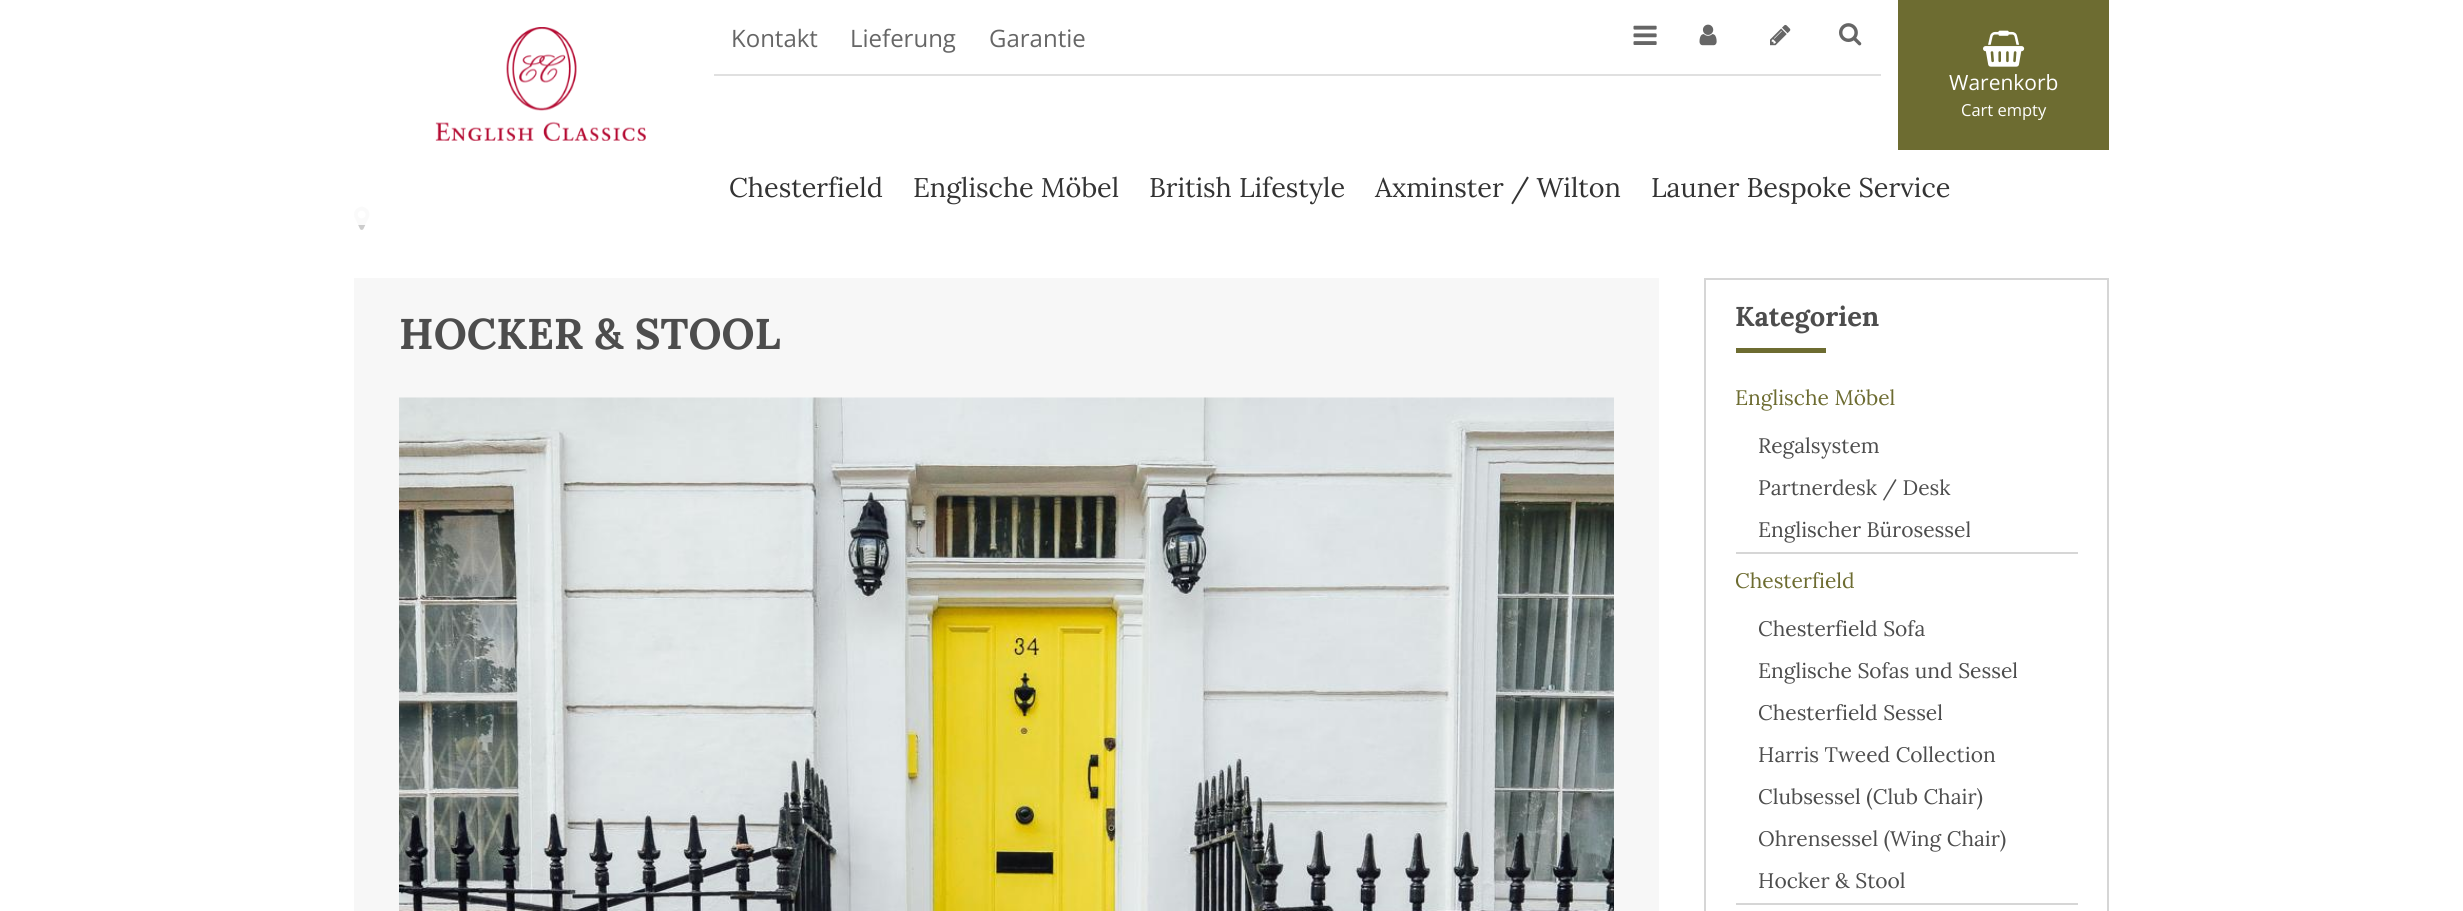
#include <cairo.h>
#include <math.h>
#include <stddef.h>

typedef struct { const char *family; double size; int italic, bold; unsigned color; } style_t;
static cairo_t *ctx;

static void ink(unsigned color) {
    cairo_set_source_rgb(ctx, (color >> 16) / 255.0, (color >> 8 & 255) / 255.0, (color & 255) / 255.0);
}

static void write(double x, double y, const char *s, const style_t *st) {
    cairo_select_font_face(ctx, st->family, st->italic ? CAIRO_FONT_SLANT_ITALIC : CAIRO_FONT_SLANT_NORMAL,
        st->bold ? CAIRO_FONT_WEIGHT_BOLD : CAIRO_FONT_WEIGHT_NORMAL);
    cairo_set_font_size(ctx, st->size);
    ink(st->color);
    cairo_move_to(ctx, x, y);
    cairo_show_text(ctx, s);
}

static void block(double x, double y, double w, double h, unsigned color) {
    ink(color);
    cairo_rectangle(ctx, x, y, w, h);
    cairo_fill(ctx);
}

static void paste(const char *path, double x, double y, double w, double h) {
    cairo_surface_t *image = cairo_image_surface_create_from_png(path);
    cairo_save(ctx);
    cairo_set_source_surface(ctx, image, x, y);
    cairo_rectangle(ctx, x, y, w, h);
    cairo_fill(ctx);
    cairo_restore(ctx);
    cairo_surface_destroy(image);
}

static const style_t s1 = {"Open Sans", 24, 0, 0, 0x666666};
static const style_t s2 = {"Lora", 27, 0, 0, 0x333333};
static const style_t s3 = {"Open Sans", 21, 0, 0, 0xffffff};
static const style_t s4 = {"Open Sans", 16.5, 0, 0, 0xffffff};
static const style_t s5 = {"Lora", 43, 0, 1, 0x4d4d4d};
static const style_t s6 = {"Lora", 27.25, 0, 1, 0x4d4d4d};
static const style_t s7 = {"Lora", 21, 0, 0, 0x6d6c31};
static const style_t s8 = {"Lora", 21, 0, 0, 0x4d4d4d};

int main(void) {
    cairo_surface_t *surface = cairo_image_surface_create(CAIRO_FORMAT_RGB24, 2463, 911);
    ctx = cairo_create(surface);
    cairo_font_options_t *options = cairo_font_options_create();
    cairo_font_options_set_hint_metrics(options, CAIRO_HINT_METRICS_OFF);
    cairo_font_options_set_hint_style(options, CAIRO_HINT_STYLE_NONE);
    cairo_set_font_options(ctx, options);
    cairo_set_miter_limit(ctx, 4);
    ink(0xffffff);
    cairo_paint(ctx);
    paste("pic7.png", 354, 206, 16, 24);
    cairo_set_source_rgba(ctx, 1, 1, 1, 0.4);
    cairo_rectangle(ctx, 354, 206, 16, 19);
    cairo_fill(ctx);
    cairo_set_source_rgba(ctx, 1, 1, 1, 0.6);
    cairo_rectangle(ctx, 354, 206, 16, 19);
    cairo_fill(ctx);
    cairo_rectangle(ctx, 354, 207, 16, 18);
    cairo_fill(ctx);
    paste("pic1.png", 435, 27, 211, 114);
    write(731, 47, "Kontakt", &s1);
    write(850, 47, "Lieferung", &s1);
    write(989, 47, "Garantie", &s1);
    paste("pic2.png", 1633, 25, 24, 20);
    paste("pic3.png", 1699, 24, 18, 22);
    paste("pic4.png", 1770, 24, 21, 22);
    paste("pic5.png", 1839, 23, 23, 23);
    block(714, 74, 1167, 2, 0xe0e0e0);
    write(729, 197, "Chesterfield", &s2);
    write(913, 197, "Englische Möbel", &s2);
    write(1149, 197, "British Lifestyle", &s2);
    write(1375, 197, "Axminster / Wilton", &s2);
    write(1651, 197, "Launer Bespoke Service", &s2);
    block(1898, 0, 211, 150, 0x6d6c31);
    paste("pic6.png", 1983, 30, 42, 37);
    write(1949, 90, "Warenkorb", &s3);
    write(1961, 116, "Cart empty", &s4);
    block(354, 278, 1305, 633, 0xf7f7f7);
    write(399, 349, "HOCKER & STOOL", &s5);
    paste("pic8.png", 399, 397, 1215, 514);
    cairo_rectangle(ctx, 1705, 279, 403, 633);
    ink(0xd6d6d6);
    cairo_stroke(ctx);
    write(1735, 326, "Kategorien", &s6);
    block(1736, 348, 90, 5, 0x6d6c31);
    block(1736, 552, 342, 2, 0xd6d6d6);
    write(1735, 405, "Englische Möbel", &s7);
    write(1758, 453, "Regalsystem", &s8);
    write(1758, 495, "Partnerdesk / Desk", &s8);
    write(1758, 537, "Englischer Bürosessel", &s8);
    block(1736, 903, 342, 2, 0xd6d6d6);
    write(1735, 588, "Chesterfield", &s7);
    write(1758, 636, "Chesterfield Sofa", &s8);
    write(1758, 678, "Englische Sofas und Sessel", &s8);
    write(1758, 720, "Chesterfield Sessel", &s8);
    write(1758, 762, "Harris Tweed Collection", &s8);
    write(1758, 804, "Clubsessel (Club Chair)", &s8);
    write(1758, 846, "Ohrensessel (Wing Chair)", &s8);
    write(1758, 888, "Hocker & Stool", &s8);
    cairo_surface_write_to_png(surface, "screenshot.png");
    cairo_font_options_destroy(options);
    cairo_destroy(ctx);
    cairo_surface_destroy(surface);
    return 0;
}
